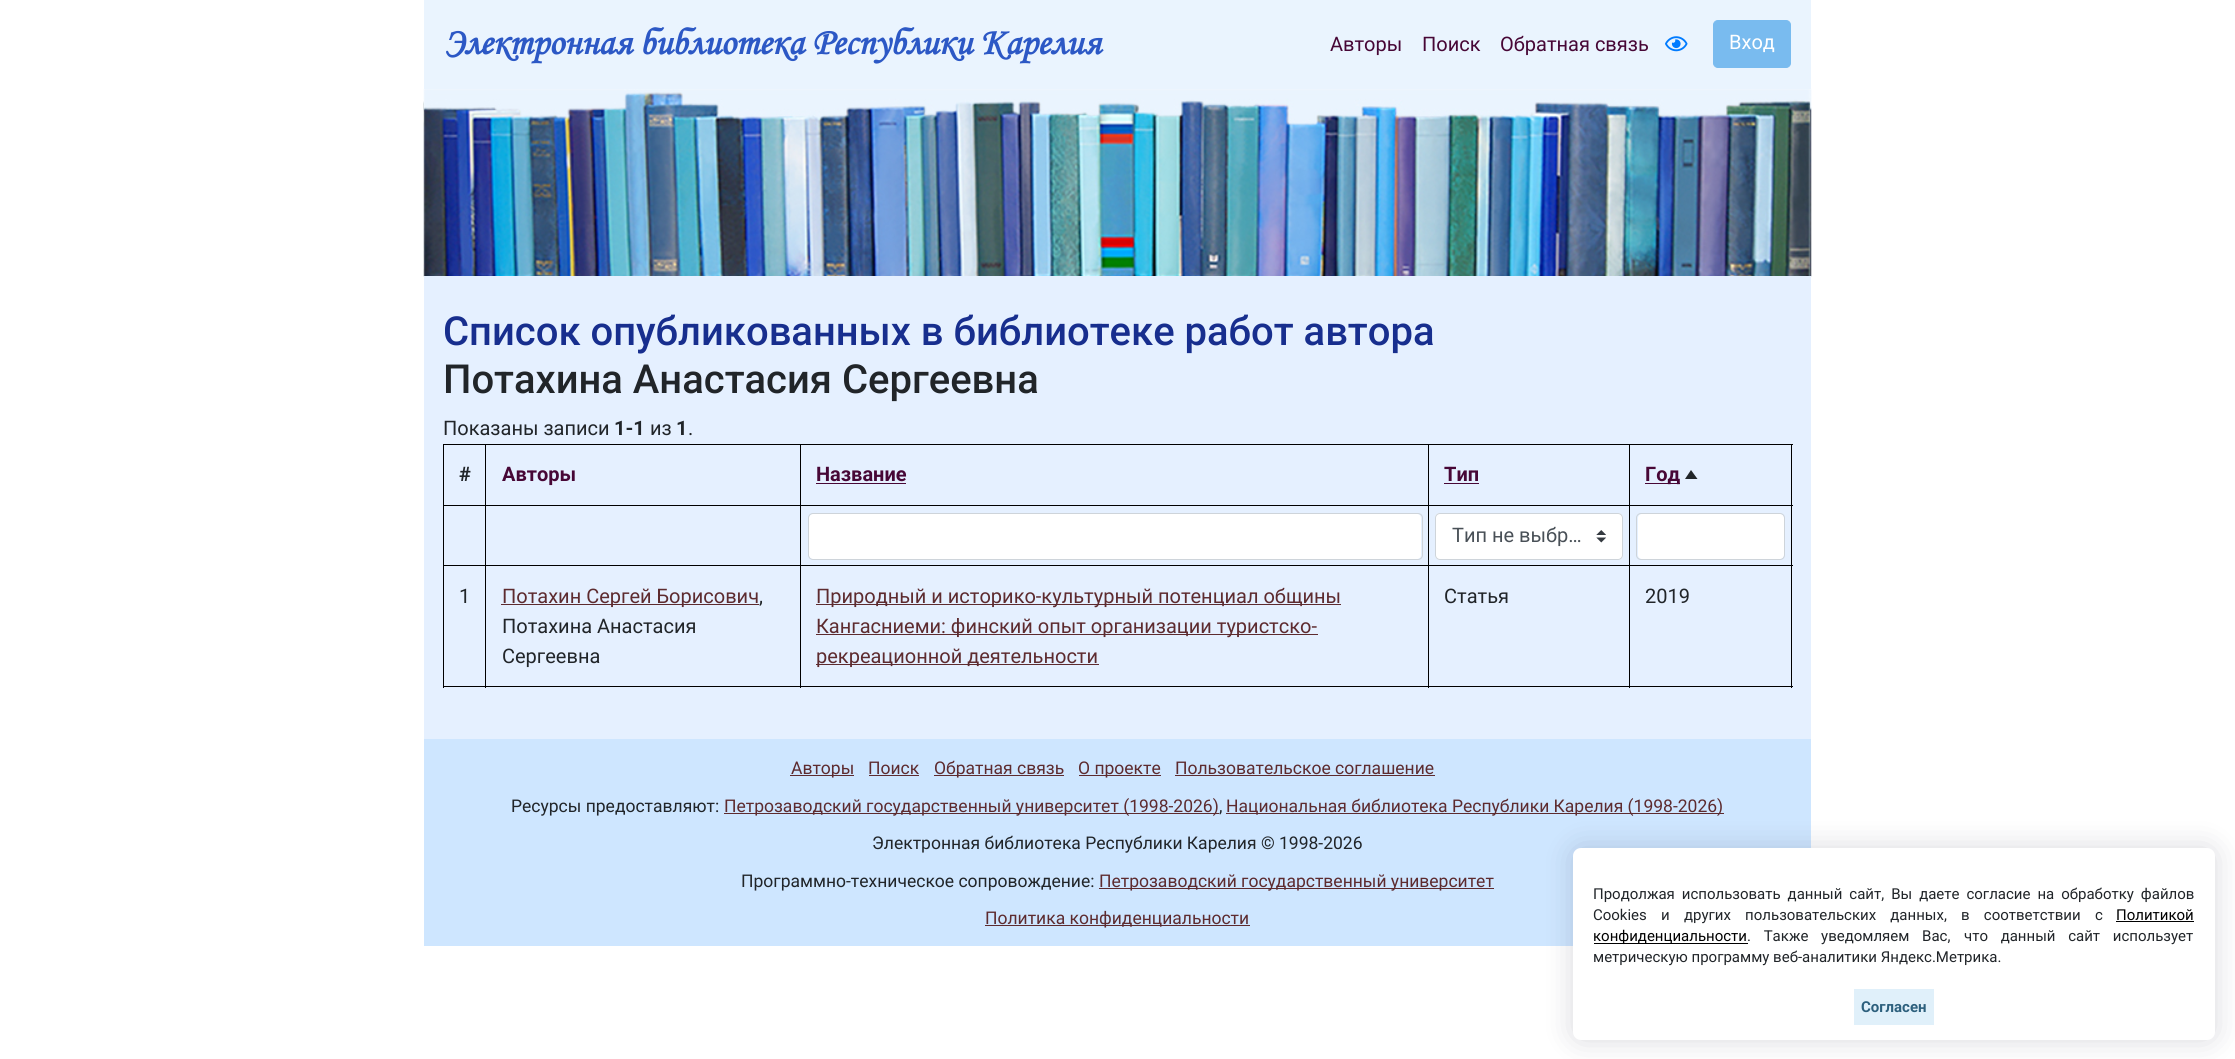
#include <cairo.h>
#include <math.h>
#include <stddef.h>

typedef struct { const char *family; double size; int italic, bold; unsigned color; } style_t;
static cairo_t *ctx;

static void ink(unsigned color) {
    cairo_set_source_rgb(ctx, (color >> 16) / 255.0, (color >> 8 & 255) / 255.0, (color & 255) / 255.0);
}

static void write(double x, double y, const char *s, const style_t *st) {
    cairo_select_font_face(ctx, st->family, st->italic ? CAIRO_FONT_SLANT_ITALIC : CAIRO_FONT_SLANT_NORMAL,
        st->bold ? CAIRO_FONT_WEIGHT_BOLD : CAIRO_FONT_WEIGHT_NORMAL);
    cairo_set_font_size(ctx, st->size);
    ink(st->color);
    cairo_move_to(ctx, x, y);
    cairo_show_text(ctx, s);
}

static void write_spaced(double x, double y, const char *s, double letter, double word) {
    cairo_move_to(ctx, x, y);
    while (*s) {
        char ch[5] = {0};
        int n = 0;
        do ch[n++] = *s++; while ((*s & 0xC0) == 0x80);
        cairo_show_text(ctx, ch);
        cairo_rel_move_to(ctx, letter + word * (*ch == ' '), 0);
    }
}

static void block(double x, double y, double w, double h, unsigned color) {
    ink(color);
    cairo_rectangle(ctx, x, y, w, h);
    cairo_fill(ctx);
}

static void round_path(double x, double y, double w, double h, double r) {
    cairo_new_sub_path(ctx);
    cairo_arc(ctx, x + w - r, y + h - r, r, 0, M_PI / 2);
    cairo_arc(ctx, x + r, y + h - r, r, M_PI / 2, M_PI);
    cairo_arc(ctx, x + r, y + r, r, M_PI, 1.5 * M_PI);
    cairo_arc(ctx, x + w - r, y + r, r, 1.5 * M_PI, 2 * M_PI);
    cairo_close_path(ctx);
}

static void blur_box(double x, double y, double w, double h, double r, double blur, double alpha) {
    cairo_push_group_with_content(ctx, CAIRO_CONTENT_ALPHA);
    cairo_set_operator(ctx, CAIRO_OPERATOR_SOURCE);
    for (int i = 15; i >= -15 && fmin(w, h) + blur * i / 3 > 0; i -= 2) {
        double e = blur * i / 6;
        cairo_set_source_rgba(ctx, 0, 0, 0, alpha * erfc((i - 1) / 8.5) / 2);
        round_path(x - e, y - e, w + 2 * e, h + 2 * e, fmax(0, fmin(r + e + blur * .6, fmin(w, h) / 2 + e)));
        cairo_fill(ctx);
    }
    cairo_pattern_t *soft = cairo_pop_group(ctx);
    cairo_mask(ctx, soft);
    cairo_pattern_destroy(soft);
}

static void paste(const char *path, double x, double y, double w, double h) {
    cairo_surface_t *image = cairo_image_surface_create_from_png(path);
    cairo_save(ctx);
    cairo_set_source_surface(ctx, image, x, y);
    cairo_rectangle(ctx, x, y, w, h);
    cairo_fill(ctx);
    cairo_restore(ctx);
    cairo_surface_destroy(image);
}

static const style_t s1 = {"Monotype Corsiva", 37.5, 1, 1, 0x2c58c5};
static const style_t s2 = {"Roboto", 20, 0, 0, 0x470736};
static const style_t s3 = {"Roboto", 20, 0, 0, 0xffffff};
static const style_t s4 = {"Roboto Medium", 40, 0, 0, 0x172e8e};
static const style_t s5 = {"Roboto Medium", 40, 0, 0, 0x212529};
static const style_t s6 = {"Roboto", 20, 0, 0, 0x212529};
static const style_t s7 = {"Roboto", 20, 0, 1, 0x212529};
static const style_t s8 = {"Roboto", 20, 0, 1, 0x470736};
static const style_t s9 = {"Roboto", 20, 0, 0, 0x495057};
static const style_t s10 = {"Roboto", 20, 0, 0, 0x5d2b2f};
static const style_t s11 = {"Roboto", 17.5, 0, 0, 0x5d2b2f};
static const style_t s12 = {"Roboto", 17.5, 0, 0, 0x212529};
static const style_t s13 = {"Roboto", 15, 0, 0, 0x000000};
static const style_t s14 = {"Roboto", 15, 0, 0, 0x212529};
static const style_t s15 = {"Roboto", 15, 0, 1, 0x2d607d};

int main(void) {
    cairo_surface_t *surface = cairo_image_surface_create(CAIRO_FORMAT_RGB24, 2235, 1059);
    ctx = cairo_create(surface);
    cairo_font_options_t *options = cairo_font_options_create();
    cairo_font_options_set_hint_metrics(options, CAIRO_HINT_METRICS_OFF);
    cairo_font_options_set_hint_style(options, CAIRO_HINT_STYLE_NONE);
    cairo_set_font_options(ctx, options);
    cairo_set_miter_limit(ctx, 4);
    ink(0xffffff);
    cairo_paint(ctx);
    paste("pic2.png", 423, 88, 1389, 189);
    block(424, 0, 1387, 89, 0xeaf4fe);
    write(444, 54, "Электронная библиотека Республики Карелия", &s1);
    write(1330, 51, "Авторы", &s2);
    write(1422, 51, "Поиск", &s2);
    write(1500, 51, "Обратная связь", &s2);
    paste("pic1.png", 1665, 36, 23, 16);
    ink(0x79bbef);
    round_path(1713.5, 20.5, 77, 47, 4.5);
    cairo_fill_preserve(ctx);
    cairo_set_line_width(ctx, 1);
    cairo_stroke(ctx);
    write(1729, 49, "Вход", &s3);
    block(424, 276, 1387, 463, 0xe5f0ff);
    write(443, 345, "Список опубликованных в библиотеке работ автора", &s4);
    write(443, 393, "Потахина Анастасия Сергеевна", &s5);
    write(443, 435, "Показаны записи", &s6);
    write(614, 435, "1-1", &s7);
    write(650, 435, "из", &s6);
    write(676, 435, "1", &s7);
    write(688, 435, ".", &s6);
    block(443, 444, 1350, 1, 0x000000);
    block(443, 505, 1350, 1, 0x000000);
    block(443, 565, 1350, 1, 0x000000);
    block(1791, 565, 1, 123, 0x000000);
    block(1791, 505, 1, 61, 0x000000);
    block(1791, 444, 1, 62, 0x000000);
    block(443, 686, 1350, 1, 0x000000);
    block(443, 565, 1, 123, 0x000000);
    block(443, 505, 1, 61, 0x000000);
    block(443, 444, 1, 62, 0x000000);
    write(459, 481, "#", &s7);
    write(502, 481, "Авторы", &s8);
    write(816, 481, "Название", &s8);
    block(816, 483, 90, 1, 0x470736);
    write(1444, 481, "Тип", &s8);
    block(1444, 483, 35, 1, 0x470736);
    block(1645, 483, 35, 1, 0x470736);
    write(1645, 481, "Год", &s8);
    ink(0x212529);
    cairo_new_path(ctx);
    cairo_move_to(ctx, 1697.5, 479);
    cairo_line_to(ctx, 1685, 479);
    cairo_line_to(ctx, 1691, 470);
    cairo_close_path(ctx);
    cairo_fill(ctx);
    ink(0xffffff);
    round_path(809, 514, 612, 45, 4);
    cairo_fill(ctx);
    round_path(808.5, 513.5, 614, 46, 4.5);
    ink(0xced4da);
    cairo_stroke(ctx);
    ink(0xffffff);
    round_path(1435, 513, 188, 47, 5);
    cairo_fill(ctx);
    paste("pic3.png", 1596, 530, 10, 13);
    round_path(1435.5, 513.5, 187, 46, 4.5);
    ink(0xced4da);
    cairo_stroke(ctx);
    write(1452, 542, "Тип не выбр…", &s9);
    ink(0xffffff);
    round_path(1638, 514, 146, 45, 4);
    cairo_fill(ctx);
    round_path(1636.5, 513.5, 148, 46, 4.5);
    ink(0xced4da);
    cairo_stroke(ctx);
    write(459, 603, "1", &s6);
    block(485, 444, 1, 244, 0x000000);
    block(501, 604, 258, 1, 0x5d2b2f);
    write(502, 603, "Потахин Сергей Борисович", &s10);
    write(759, 603, ",", &s6);
    write(502, 633, "Потахина Анастасия", &s6);
    write(502, 663, "Сергеевна", &s6);
    block(800, 444, 1, 244, 0x000000);
    block(816, 604, 525, 1, 0x5d2b2f);
    write(816, 603, "Природный и историко-культурный потенциал общины", &s10);
    block(816, 634, 502, 1, 0x5d2b2f);
    write(816, 633, "Кангасниеми: финский опыт организации туристско-", &s10);
    block(816, 664, 283, 1, 0x5d2b2f);
    write(816, 663, "рекреационной деятельности", &s10);
    block(1428, 444, 1, 244, 0x000000);
    write(1444, 603, "Статья", &s6);
    block(1629, 444, 1, 244, 0x000000);
    write(1645, 603, "2019", &s6);
    block(424, 739, 1387, 207, 0xcee6ff);
    block(790, 775, 64, 1, 0x5d2b2f);
    write(791, 774, "Авторы", &s11);
    write(868, 774, "Поиск", &s11);
    block(869, 775, 50, 1, 0x5d2b2f);
    block(934, 775, 130, 1, 0x5d2b2f);
    write(934, 774, "Обратная связь", &s11);
    block(1079, 775, 82, 1, 0x5d2b2f);
    write(1078, 774, "О проекте", &s11);
    write(1175, 774, "Пользовательское соглашение", &s11);
    block(1175, 775, 260, 1, 0x5d2b2f);
    write(511, 812, "Ресурсы предоставляют:", &s12);
    block(724, 813, 495, 1, 0x5d2b2f);
    write(724, 812, "Петрозаводский государственный университет (1998-2026)", &s11);
    write(1219, 812, ",", &s12);
    block(1226, 813, 498, 1, 0x5d2b2f);
    write(1226, 812, "Национальная библиотека Республики Карелия (1998-2026)", &s11);
    write(872, 849, "Электронная библиотека Республики Карелия © 1998-2026", &s12);
    write(741, 887, "Программно-техническое сопровождение:", &s12);
    block(1099, 888, 395, 1, 0x5d2b2f);
    write(1099, 887, "Петрозаводский государственный университет", &s11);
    block(985, 925, 265, 1, 0x5d2b2f);
    write(985, 924, "Политика конфиденциальности", &s11);
    ink(0x05001f);
    blur_box(1573, 848, 642, 192, 8, 15, 0.15);
    ink(0xffffff);
    round_path(1573, 848, 642, 192, 8);
    cairo_fill(ctx);
    cairo_set_font_size(ctx, 15);
    ink(0x212529);
    write_spaced(1593, 899, "Продолжая использовать данный сайт, Вы даете согласие на обработку файлов", 0, 3.25);
    write_spaced(1593, 920, "Cookies и других пользовательских данных,", 0, 10.5);
    write_spaced(1961, 920, "в соответствии с", 0, 10.5);
    write(2116, 920, "Политикой", &s13);
    block(2116, 921, 78, 1, 0x000000);
    block(1594, 943, 154, 1, 0x000000);
    write(1593, 941, "конфиденциальности", &s13);
    ink(0x212529);
    write_spaced(1747, 941, ". Также уведомляем Вас,", 0, 9);
    write_spaced(1964, 941, "что данный сайт использует", 0, 9);
    write(1593, 962, "метрическую программу веб-аналитики Яндекс.Метрика.", &s14);
    block(1854, 989, 80, 36, 0xe0f0fa);
    write(1861, 1012, "Согласен", &s15);
    cairo_surface_write_to_png(surface, "screenshot.png");
    cairo_font_options_destroy(options);
    cairo_destroy(ctx);
    cairo_surface_destroy(surface);
    return 0;
}
